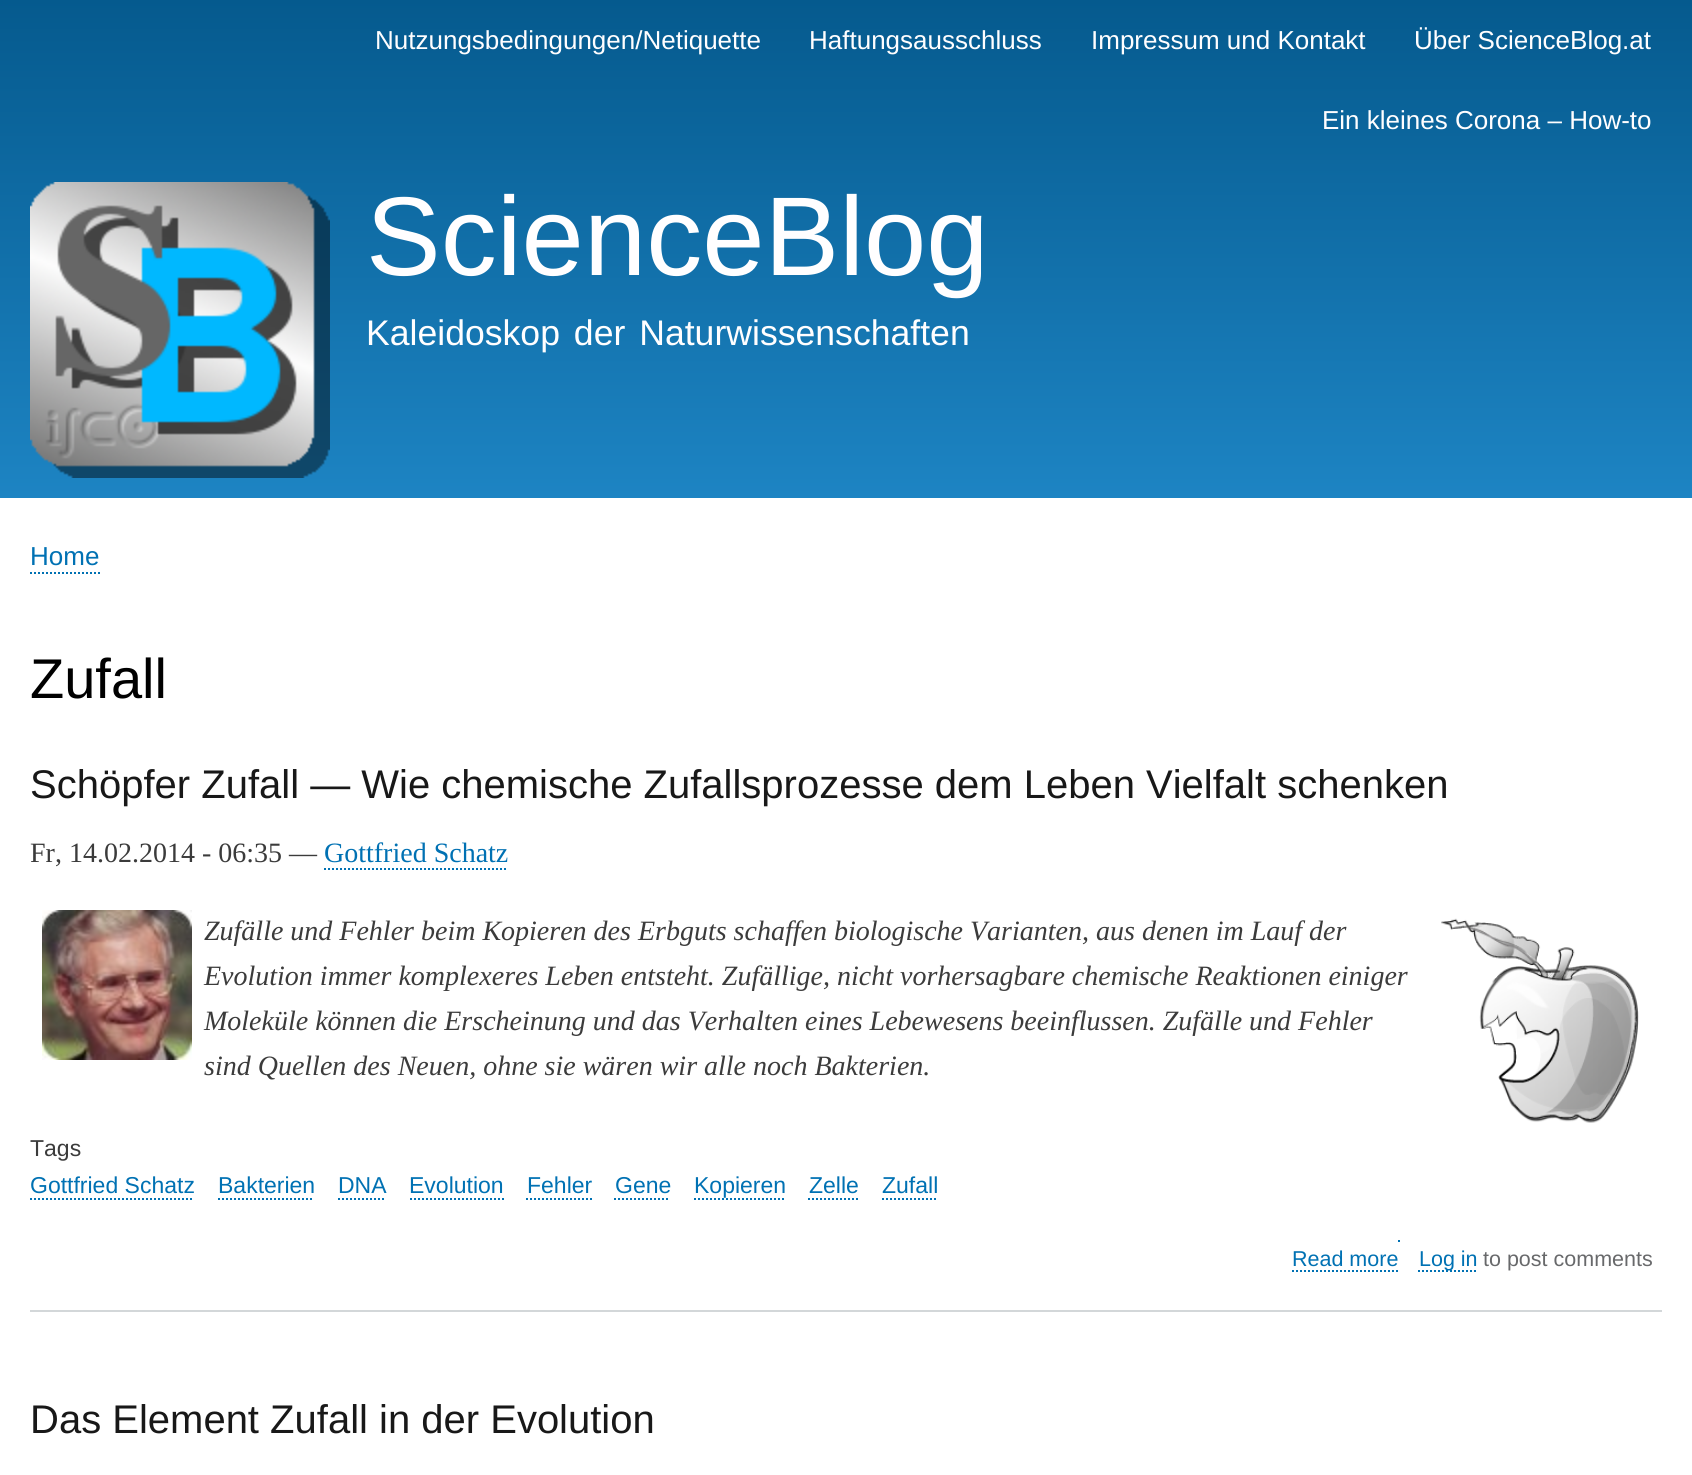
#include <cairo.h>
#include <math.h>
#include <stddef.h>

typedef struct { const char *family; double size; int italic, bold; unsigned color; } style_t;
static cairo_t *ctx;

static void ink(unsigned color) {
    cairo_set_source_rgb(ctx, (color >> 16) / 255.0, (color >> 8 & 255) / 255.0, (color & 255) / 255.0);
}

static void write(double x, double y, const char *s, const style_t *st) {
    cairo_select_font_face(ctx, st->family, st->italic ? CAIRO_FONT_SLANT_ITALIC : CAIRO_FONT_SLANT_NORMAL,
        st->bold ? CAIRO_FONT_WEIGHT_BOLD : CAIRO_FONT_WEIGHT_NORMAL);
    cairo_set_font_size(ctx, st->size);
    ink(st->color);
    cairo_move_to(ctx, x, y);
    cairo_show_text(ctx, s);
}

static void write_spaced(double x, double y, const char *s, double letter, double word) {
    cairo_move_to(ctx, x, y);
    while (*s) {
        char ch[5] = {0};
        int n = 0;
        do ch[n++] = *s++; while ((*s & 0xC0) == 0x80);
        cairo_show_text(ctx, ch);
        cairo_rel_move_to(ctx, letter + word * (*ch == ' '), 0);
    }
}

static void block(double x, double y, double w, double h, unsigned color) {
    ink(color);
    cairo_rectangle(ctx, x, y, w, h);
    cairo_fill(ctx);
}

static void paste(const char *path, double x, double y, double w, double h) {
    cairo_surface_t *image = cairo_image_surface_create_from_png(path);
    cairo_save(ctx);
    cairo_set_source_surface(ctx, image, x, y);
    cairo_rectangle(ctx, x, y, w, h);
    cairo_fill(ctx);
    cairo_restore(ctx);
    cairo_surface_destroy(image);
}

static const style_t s1 = {"Liberation Sans", 26, 0, 0, 0xfffeff};
static const style_t s2 = {"Liberation Sans", 112, 0, 0, 0xfffeff};
static const style_t s3 = {"Liberation Sans", 26, 0, 0, 0x0071b3};
static const style_t s4 = {"Liberation Sans", 56, 0, 0, 0x000000};
static const style_t s5 = {"Liberation Sans", 40, 0, 0, 0x181818};
static const style_t s6 = {"Liberation Serif", 28, 0, 0, 0x3b3b3b};
static const style_t s7 = {"Liberation Serif", 28, 0, 0, 0x0071b3};
static const style_t s8 = {"Liberation Serif", 28, 1, 0, 0x3b3b3b};
static const style_t s9 = {"Liberation Sans", 23, 0, 0, 0x3b3b3b};
static const style_t s10 = {"Liberation Sans", 23, 0, 0, 0x0071b3};
static const style_t s11 = {"Liberation Sans", 21.5, 0, 0, 0x0071b3};
static const style_t s12 = {"Liberation Sans", 21.5, 0, 0, 0x68696b};

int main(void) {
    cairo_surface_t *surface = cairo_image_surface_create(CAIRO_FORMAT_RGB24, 1692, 1475);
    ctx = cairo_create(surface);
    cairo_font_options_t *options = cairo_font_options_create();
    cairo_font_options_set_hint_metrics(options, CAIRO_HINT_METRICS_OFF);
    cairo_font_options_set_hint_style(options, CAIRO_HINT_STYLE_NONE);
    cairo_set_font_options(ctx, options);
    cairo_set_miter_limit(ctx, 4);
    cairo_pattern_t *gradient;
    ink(0xffffff);
    cairo_paint(ctx);
    gradient = cairo_pattern_create_linear(846, 0, 846, 498);
    cairo_pattern_add_color_stop_rgba(gradient, 0, 0.02, 0.353, 0.557, 1);
    cairo_pattern_add_color_stop_rgba(gradient, 1, 0.114, 0.518, 0.765, 1);
    cairo_set_source(ctx, gradient);
    cairo_pattern_destroy(gradient);
    cairo_rectangle(ctx, 0, 0, 1692, 498);
    cairo_fill(ctx);
    write(375, 49, "Nutzungsbedingungen/Netiquette", &s1);
    write(809, 49, "Haftungsausschluss", &s1);
    write(1091, 49, "Impressum und Kontakt", &s1);
    write(1414, 49, "Über ScienceBlog.at", &s1);
    write(1322, 129, "Ein kleines Corona – How-to", &s1);
    paste("pic1.png", 30, 182, 300, 296);
    write(366, 275, "ScienceBlog", &s2);
    cairo_set_font_size(ctx, 35.6);
    write_spaced(366, 345, "Kaleidoskop der Naturwissenschaften", 0, 4);
    write(30, 565, "Home", &s3);
    cairo_new_path(ctx);
    cairo_move_to(ctx, 30, 573);
    cairo_line_to(ctx, 100, 573);
    cairo_set_dash(ctx, (double[]){2, 2}, 2, 0);
    cairo_stroke(ctx);
    write(30, 698, "Zufall", &s4);
    block(30, 1310, 1632, 2, 0xd3d7d9);
    write(30, 798, "Schöpfer Zufall — Wie chemische Zufallsprozesse dem Leben Vielfalt schenken", &s5);
    write(30, 862, "Fr, 14.02.2014 - 06:35 —", &s6);
    write(324, 862, "Gottfried Schatz", &s7);
    cairo_new_path(ctx);
    cairo_move_to(ctx, 324, 869);
    cairo_line_to(ctx, 508, 869);
    cairo_stroke(ctx);
    paste("pic2.png", 42, 910, 150, 150);
    write(204, 940, "Zufälle und Fehler beim Kopieren des Erbguts schaffen biologische Varianten, aus denen im Lauf der", &s8);
    paste("pic3.png", 1441, 918, 198, 205);
    write(204, 985, "Evolution immer komplexeres Leben entsteht. Zufällige, nicht vorhersagbare chemische Reaktionen einiger", &s8);
    write(204, 1030, "Moleküle können die Erscheinung und das Verhalten eines Lebewesens beeinflussen. Zufälle und Fehler", &s8);
    write(204, 1075, "sind Quellen des Neuen, ohne sie wären wir alle noch Bakterien.", &s8);
    write(30, 1156, "Tags", &s9);
    write(30, 1193, "Gottfried Schatz", &s10);
    cairo_new_path(ctx);
    cairo_move_to(ctx, 30, 1199);
    cairo_line_to(ctx, 194, 1199);
    cairo_stroke(ctx);
    write(218, 1193, "Bakterien", &s10);
    cairo_new_path(ctx);
    cairo_move_to(ctx, 218, 1199);
    cairo_line_to(ctx, 314, 1199);
    cairo_stroke(ctx);
    write(338, 1193, "DNA", &s10);
    cairo_new_path(ctx);
    cairo_move_to(ctx, 338, 1199);
    cairo_line_to(ctx, 386, 1199);
    cairo_stroke(ctx);
    write(409, 1193, "Evolution", &s10);
    cairo_new_path(ctx);
    cairo_move_to(ctx, 410, 1199);
    cairo_line_to(ctx, 504, 1199);
    cairo_stroke(ctx);
    write(527, 1193, "Fehler", &s10);
    cairo_new_path(ctx);
    cairo_move_to(ctx, 526, 1199);
    cairo_line_to(ctx, 592, 1199);
    cairo_stroke(ctx);
    write(615, 1193, "Gene", &s10);
    cairo_new_path(ctx);
    cairo_move_to(ctx, 614, 1199);
    cairo_line_to(ctx, 670, 1199);
    cairo_stroke(ctx);
    write(694, 1193, "Kopieren", &s10);
    cairo_new_path(ctx);
    cairo_move_to(ctx, 694, 1199);
    cairo_line_to(ctx, 786, 1199);
    cairo_stroke(ctx);
    write(809, 1193, "Zelle", &s10);
    cairo_new_path(ctx);
    cairo_move_to(ctx, 808, 1199);
    cairo_line_to(ctx, 858, 1199);
    cairo_stroke(ctx);
    write(882, 1193, "Zufall", &s10);
    cairo_new_path(ctx);
    cairo_move_to(ctx, 882, 1199);
    cairo_line_to(ctx, 938, 1199);
    cairo_stroke(ctx);
    write(1292, 1266, "Read more", &s11);
    cairo_new_path(ctx);
    cairo_move_to(ctx, 1292, 1271);
    cairo_line_to(ctx, 1398, 1271);
    cairo_stroke(ctx);
    block(1398, 1240, 2, 2, 0x0071b3);
    cairo_new_path(ctx);
    cairo_move_to(ctx, 1418, 1271);
    cairo_line_to(ctx, 1476, 1271);
    cairo_stroke(ctx);
    write(1419, 1266, "Log in", &s11);
    write(1483, 1266, "to post comments", &s12);
    write(30, 1433, "Das Element Zufall in der Evolution", &s5);
    cairo_surface_write_to_png(surface, "screenshot.png");
    cairo_font_options_destroy(options);
    cairo_destroy(ctx);
    cairo_surface_destroy(surface);
    return 0;
}
